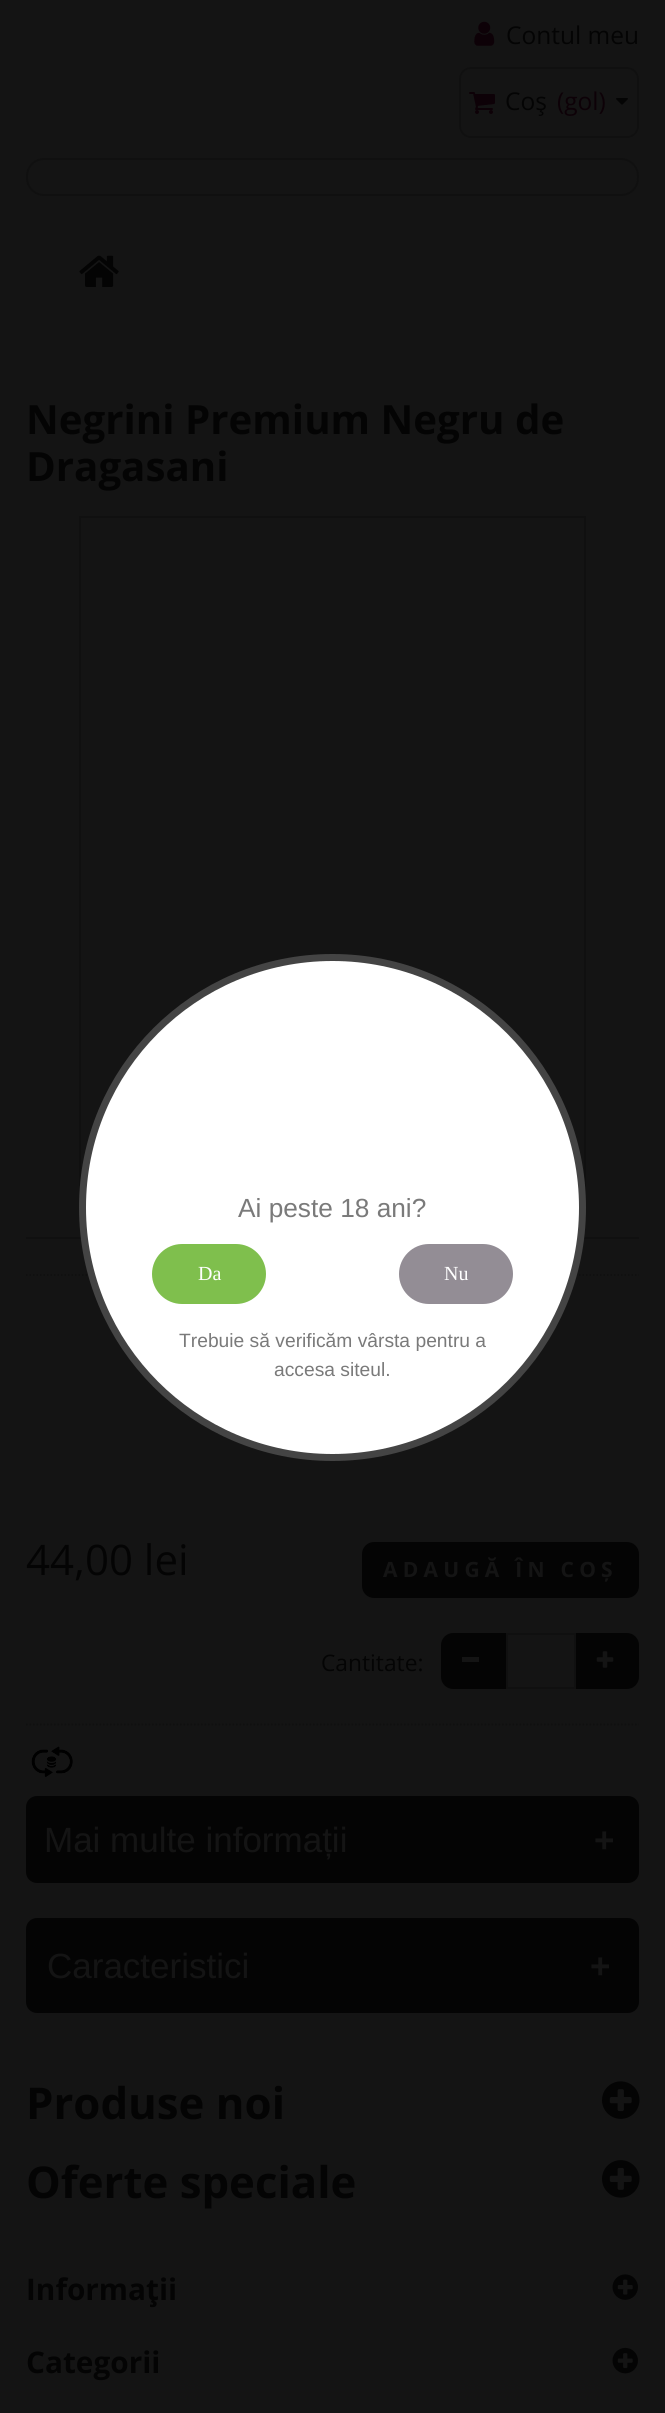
#include <cairo.h>
#include <math.h>
#include <stddef.h>

typedef struct { const char *family; double size; int italic, bold; unsigned color; } style_t;
static cairo_t *ctx;

static void ink(unsigned color) {
    cairo_set_source_rgb(ctx, (color >> 16) / 255.0, (color >> 8 & 255) / 255.0, (color & 255) / 255.0);
}

static void write(double x, double y, const char *s, const style_t *st) {
    cairo_select_font_face(ctx, st->family, st->italic ? CAIRO_FONT_SLANT_ITALIC : CAIRO_FONT_SLANT_NORMAL,
        st->bold ? CAIRO_FONT_WEIGHT_BOLD : CAIRO_FONT_WEIGHT_NORMAL);
    cairo_set_font_size(ctx, st->size);
    ink(st->color);
    cairo_move_to(ctx, x, y);
    cairo_show_text(ctx, s);
}

static void write_spaced(double x, double y, const char *s, double letter, double word) {
    cairo_move_to(ctx, x, y);
    while (*s) {
        char ch[5] = {0};
        int n = 0;
        do ch[n++] = *s++; while ((*s & 0xC0) == 0x80);
        cairo_show_text(ctx, ch);
        cairo_rel_move_to(ctx, letter + word * (*ch == ' '), 0);
    }
}

static void block(double x, double y, double w, double h, unsigned color) {
    ink(color);
    cairo_rectangle(ctx, x, y, w, h);
    cairo_fill(ctx);
}

static void round_path(double x, double y, double w, double h, double r) {
    cairo_new_sub_path(ctx);
    cairo_arc(ctx, x + w - r, y + h - r, r, 0, M_PI / 2);
    cairo_arc(ctx, x + r, y + h - r, r, M_PI / 2, M_PI);
    cairo_arc(ctx, x + r, y + r, r, M_PI, 1.5 * M_PI);
    cairo_arc(ctx, x + w - r, y + r, r, 1.5 * M_PI, 2 * M_PI);
    cairo_close_path(ctx);
}

static void paste(const char *path, double x, double y, double w, double h) {
    cairo_surface_t *image = cairo_image_surface_create_from_png(path);
    cairo_save(ctx);
    cairo_set_source_surface(ctx, image, x, y);
    cairo_rectangle(ctx, x, y, w, h);
    cairo_fill(ctx);
    cairo_restore(ctx);
    cairo_surface_destroy(image);
}

static const style_t s1 = {"Open Sans", 24.5, 0, 0, 0x040404};
static const style_t s2 = {"Open Sans", 24.5, 0, 0, 0x0d0107};
static const style_t s3 = {"Open Sans", 40.25, 0, 1, 0x040404};
static const style_t s4 = {"Open Sans", 42, 0, 0, 0x040404};
static const style_t s5 = {"Open Sans", 22.75, 0, 0, 0x040404};
static const style_t s6 = {"Liberation Sans", 35, 0, 0, 0x141414};
static const style_t s7 = {"Liberation Sans", 35, 0, 1, 0x141414};
static const style_t s8 = {"Open Sans", 43.75, 0, 1, 0x040404};
static const style_t s9 = {"Open Sans", 29.75, 0, 1, 0x040404};
static const style_t s10 = {"Liberation Sans", 26.25, 0, 0, 0x7a7a7a};
static const style_t s11 = {"Liberation Serif", 20, 0, 0, 0xffffff};
static const style_t s12 = {"Liberation Sans", 19.25, 0, 0, 0x7a7a7a};

int main(void) {
    cairo_surface_t *surface = cairo_image_surface_create(CAIRO_FORMAT_RGB24, 665, 2413);
    ctx = cairo_create(surface);
    cairo_font_options_t *options = cairo_font_options_create();
    cairo_font_options_set_hint_metrics(options, CAIRO_HINT_METRICS_OFF);
    cairo_font_options_set_hint_style(options, CAIRO_HINT_STYLE_NONE);
    cairo_set_font_options(ctx, options);
    cairo_set_miter_limit(ctx, 4);
    ink(0x141414);
    cairo_paint(ctx);
    paste("pic1.png", 474, 21, 21, 25);
    write(506, 44, "Contul meu", &s1);
    round_path(460, 68, 178, 69, 11);
    ink(0x101010);
    cairo_stroke(ctx);
    paste("pic2.png", 469, 92, 26, 22);
    write(505, 110, "Coş", &s1);
    write(557, 110, "(gol)", &s2);
    paste("pic3.png", 616, 98, 12, 7);
    round_path(27, 159, 611, 36, 17);
    ink(0x101010);
    cairo_stroke(ctx);
    paste("pic4.png", 79, 255, 40, 32);
    write(26, 434, "Negrini Premium Negru de", &s3);
    write(26, 481, "Dragasani", &s3);
    cairo_rectangle(ctx, 80, 517, 505, 702);
    ink(0x101010);
    cairo_stroke(ctx);
    block(26, 1237, 613, 2, 0x101010);
    cairo_new_path(ctx);
    cairo_move_to(ctx, 26, 1275);
    cairo_line_to(ctx, 639, 1275);
    cairo_set_line_width(ctx, 1.8);
    cairo_set_dash(ctx, (double[]){1.75, 1.75}, 2, 0);
    cairo_stroke(ctx);
    cairo_new_path(ctx);
    cairo_move_to(ctx, 26, 1724.5);
    cairo_line_to(ctx, 639, 1724.5);
    cairo_stroke(ctx);
    write(26, 1575, "44,00 lei", &s4);
    round_path(362, 1542, 277, 56, 12);
    cairo_fill(ctx);
    cairo_select_font_face(ctx, "Open Sans", CAIRO_FONT_SLANT_NORMAL, CAIRO_FONT_WEIGHT_BOLD);
    cairo_set_font_size(ctx, 21);
    ink(0x141414);
    write_spaced(383, 1577, "ADAUGĂ ÎN COȘ", 5.25, 0);
    write(321, 1671, "Cantitate:", &s5);
    cairo_new_path(ctx);
    cairo_move_to(ctx, 453, 1633);
    cairo_line_to(ctx, 506, 1633);
    cairo_line_to(ctx, 506, 1689);
    cairo_line_to(ctx, 453, 1689);
    cairo_curve_to(ctx, 446.5, 1689, 441, 1683.5, 441, 1677);
    cairo_line_to(ctx, 441, 1645);
    cairo_curve_to(ctx, 441, 1638.5, 446.5, 1633, 453, 1633);
    cairo_close_path(ctx);
    cairo_fill(ctx);
    block(462, 1657, 17, 5, 0x141414);
    cairo_rectangle(ctx, 507, 1634, 68, 54);
    ink(0x101010);
    cairo_set_line_width(ctx, 2);
    cairo_set_dash(ctx, NULL, 0, 0);
    cairo_stroke(ctx);
    ink(0x040404);
    cairo_new_path(ctx);
    cairo_move_to(ctx, 576, 1633);
    cairo_line_to(ctx, 627, 1633);
    cairo_curve_to(ctx, 633.5, 1633, 639, 1638.5, 639, 1645);
    cairo_line_to(ctx, 639, 1677);
    cairo_curve_to(ctx, 639, 1683.5, 633.5, 1689, 627, 1689);
    cairo_line_to(ctx, 576, 1689);
    cairo_close_path(ctx);
    cairo_fill(ctx);
    paste("pic5.png", 596, 1651, 18, 17);
    paste("pic6.png", 31, 1746, 42, 31);
    round_path(26, 1796, 613, 87, 11);
    cairo_fill(ctx);
    write(44, 1852, "Mai multe informații", &s6);
    write(594, 1852, "+", &s7);
    ink(0x040404);
    round_path(26, 1918, 613, 95, 11);
    cairo_fill(ctx);
    write(47, 1978, "Caracteristici", &s6);
    write(590, 1978, "+", &s7);
    write(26, 2119, "Produse noi", &s8);
    paste("pic7.png", 602, 2081, 38, 38);
    write(26, 2198, "Oferte speciale", &s8);
    paste("pic8.png", 602, 2160, 38, 38);
    write(26, 2300, "Informaţii", &s9);
    paste("pic9.png", 612, 2274, 26, 26);
    write(26, 2373, "Categorii", &s9);
    paste("pic10.png", 612, 2347, 26, 27);
    ink(0xffffff);
    cairo_arc(ctx, 332.5, 1207.5, 250, 0, 2 * M_PI);
    cairo_fill_preserve(ctx);
    ink(0x444444);
    cairo_set_line_width(ctx, 7);
    cairo_stroke(ctx);
    write(238, 1217, "Ai peste 18 ani?", &s10);
    ink(0x7fbf4d);
    round_path(152, 1244, 114, 60, 30);
    cairo_fill(ctx);
    write(198, 1280, "Da", &s11);
    ink(0x938d95);
    round_path(399, 1244, 114, 60, 30);
    cairo_fill(ctx);
    write(444, 1280, "Nu", &s11);
    write(179, 1347, "Trebuie să verificăm vârsta pentru a", &s12);
    write(274, 1376, "accesa siteul.", &s12);
    cairo_surface_write_to_png(surface, "screenshot.png");
    cairo_font_options_destroy(options);
    cairo_destroy(ctx);
    cairo_surface_destroy(surface);
    return 0;
}
